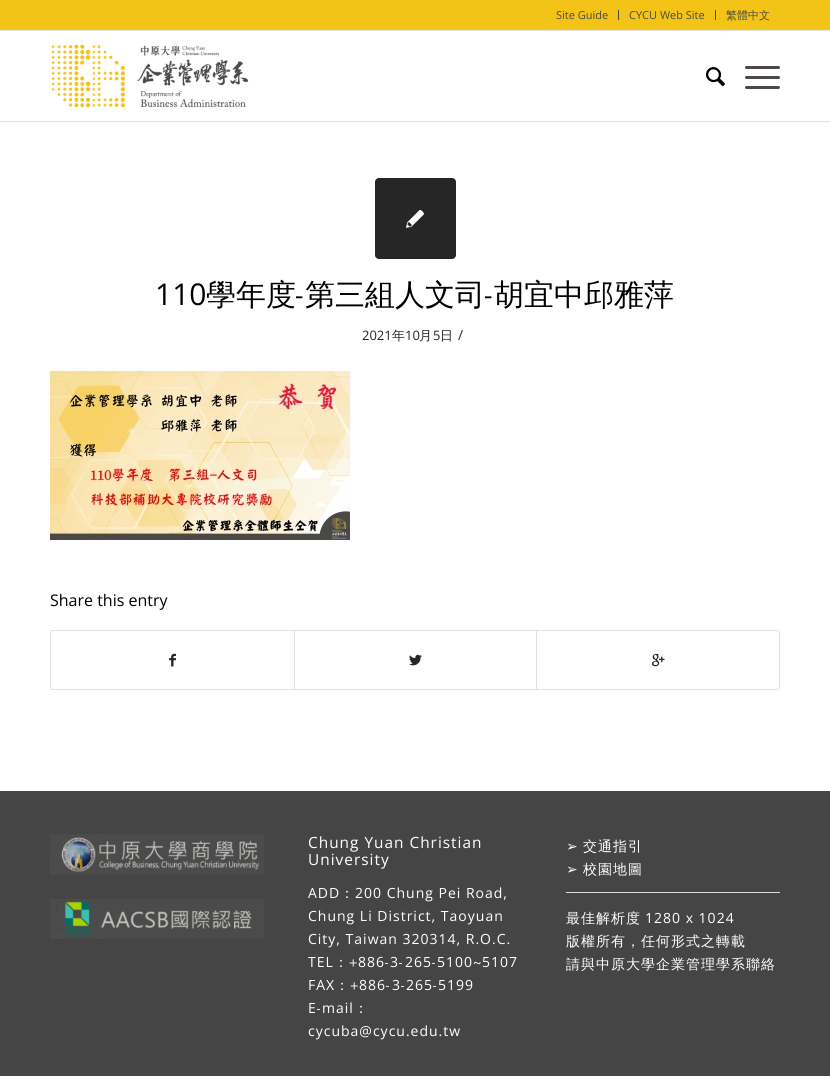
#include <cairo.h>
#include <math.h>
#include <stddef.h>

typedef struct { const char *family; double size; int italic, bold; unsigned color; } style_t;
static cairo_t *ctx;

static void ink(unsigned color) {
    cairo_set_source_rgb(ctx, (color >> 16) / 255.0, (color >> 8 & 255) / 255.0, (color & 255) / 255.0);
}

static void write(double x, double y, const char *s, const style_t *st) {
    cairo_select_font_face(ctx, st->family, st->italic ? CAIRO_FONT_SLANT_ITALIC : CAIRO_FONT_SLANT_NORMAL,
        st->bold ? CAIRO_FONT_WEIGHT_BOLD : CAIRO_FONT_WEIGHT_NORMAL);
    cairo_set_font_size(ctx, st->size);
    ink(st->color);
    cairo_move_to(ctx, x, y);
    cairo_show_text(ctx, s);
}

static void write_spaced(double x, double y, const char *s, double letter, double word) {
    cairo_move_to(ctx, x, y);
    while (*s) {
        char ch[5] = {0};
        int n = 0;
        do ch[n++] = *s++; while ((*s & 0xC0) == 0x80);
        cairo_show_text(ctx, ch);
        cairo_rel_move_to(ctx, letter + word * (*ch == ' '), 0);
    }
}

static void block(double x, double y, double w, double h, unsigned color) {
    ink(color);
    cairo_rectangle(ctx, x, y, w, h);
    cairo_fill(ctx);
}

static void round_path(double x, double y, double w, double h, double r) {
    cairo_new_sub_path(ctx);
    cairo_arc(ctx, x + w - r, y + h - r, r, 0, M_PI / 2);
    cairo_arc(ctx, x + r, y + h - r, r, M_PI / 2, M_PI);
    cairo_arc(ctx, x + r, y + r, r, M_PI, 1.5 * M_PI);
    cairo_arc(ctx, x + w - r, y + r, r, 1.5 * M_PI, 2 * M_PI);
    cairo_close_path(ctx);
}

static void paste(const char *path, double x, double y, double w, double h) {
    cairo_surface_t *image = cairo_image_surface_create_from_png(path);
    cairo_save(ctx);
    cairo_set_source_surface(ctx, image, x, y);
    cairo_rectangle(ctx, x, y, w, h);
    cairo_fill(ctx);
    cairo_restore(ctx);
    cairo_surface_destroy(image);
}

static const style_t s1 = {"Open Sans", 11, 0, 0, 0x4c4948};
static const style_t s2 = {"WenQuanYi Zen Hei Medium", 11, 0, 0, 0x4c4948};
static const style_t s3 = {"Open Sans", 30, 0, 0, 0x000000};
static const style_t s4 = {"WenQuanYi Zen Hei Medium", 30, 0, 0, 0x000000};
static const style_t s5 = {"Open Sans", 13, 0, 0, 0x262626};
static const style_t s6 = {"WenQuanYi Zen Hei Medium", 13, 0, 0, 0x262626};
static const style_t s7 = {"Open Sans", 14, 0, 0, 0x262626};
static const style_t s8 = {"Open Sans", 16, 0, 0, 0x000000};

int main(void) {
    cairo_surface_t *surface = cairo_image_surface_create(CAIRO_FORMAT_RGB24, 830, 1076);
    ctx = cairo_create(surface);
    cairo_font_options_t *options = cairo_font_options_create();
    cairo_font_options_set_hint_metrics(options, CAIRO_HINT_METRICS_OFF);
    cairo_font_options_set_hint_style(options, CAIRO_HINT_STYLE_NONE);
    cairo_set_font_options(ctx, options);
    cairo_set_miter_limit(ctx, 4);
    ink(0xffffff);
    cairo_paint(ctx);
    block(0, 0, 830, 30, 0xf3c317);
    block(0, 30, 830, 1, 0xe1e1e1);
    block(618, 10, 1, 10, 0x4c4948);
    write(556, 19, "Site Guide", &s1);
    block(715, 10, 1, 10, 0x4c4948);
    write(629, 19, "CYCU Web Site", &s1);
    write(726, 19, "繁體中文", &s2);
    block(0, 121, 830, 1, 0xe1e1e1);
    paste("pic1.png", 51, 44, 198, 64);
    paste("pic2.png", 706, 67, 19, 20);
    ink(0x4c4948);
    round_path(745, 76, 35, 3, 1.5);
    cairo_fill(ctx);
    round_path(745, 66, 35, 3, 1.5);
    cairo_fill(ctx);
    round_path(745, 86, 35, 3, 1.5);
    cairo_fill(ctx);
    ink(0x262626);
    round_path(375, 178, 81, 81, 4);
    cairo_fill(ctx);
    paste("pic3.png", 406, 210, 18, 18);
    write(155, 305, "110", &s3);
    write(206, 305, "學年度-第三組人文司-胡宜中邱雅萍", &s4);
    write(362, 340, "2021", &s5);
    write(392, 340, "年", &s6);
    write(405, 340, "10", &s5);
    write(419, 340, "月", &s6);
    write(433, 340, "5", &s5);
    write(440, 340, "日", &s6);
    write(458, 340, "/", &s7);
    paste("pic4.png", 50, 371, 300, 169);
    write(50, 606, "Share this entry", &s8);
    round_path(50.5, 630.5, 729, 59, 2.5);
    ink(0xe1e1e1);
    cairo_set_line_width(ctx, 1);
    cairo_stroke(ctx);
    paste("pic5.png", 169, 653, 7, 14);
    block(294, 631, 1, 58, 0xe1e1e1);
    paste("pic6.png", 409, 654, 13, 12);
    block(536, 631, 1, 58, 0xe1e1e1);
    paste("pic7.png", 652, 653, 13, 14);
    block(0, 791, 830, 285, 0x454545);
    paste("pic8.png", 50, 834, 214, 41);
    paste("pic9.png", 50, 899, 214, 40);
    cairo_set_font_size(ctx, 15.4);
    ink(0xffffff);
    write_spaced(308, 848, "Chung Yuan Christian", 1, 0);
    write_spaced(308, 865, "University", 1, 0);
    cairo_set_font_size(ctx, 14);
    write_spaced(308, 898, "ADD", 1, 0);
    cairo_select_font_face(ctx, "WenQuanYi Zen Hei Medium", CAIRO_FONT_SLANT_NORMAL, CAIRO_FONT_WEIGHT_NORMAL);
    write_spaced(340, 898, "：", 1, 0);
    cairo_select_font_face(ctx, "Open Sans", CAIRO_FONT_SLANT_NORMAL, CAIRO_FONT_WEIGHT_NORMAL);
    write_spaced(355, 898, "200 Chung Pei Road,", 1, 0);
    write_spaced(308, 921, "Chung Li District, Taoyuan", 1, 0);
    write_spaced(308, 944, "City, Taiwan 320314, R.O.C.", 1, 0);
    write_spaced(308, 967, "TEL", 1, 0);
    cairo_select_font_face(ctx, "WenQuanYi Zen Hei Medium", CAIRO_FONT_SLANT_NORMAL, CAIRO_FONT_WEIGHT_NORMAL);
    write_spaced(334, 967, "：+", 1, 0);
    cairo_select_font_face(ctx, "Open Sans", CAIRO_FONT_SLANT_NORMAL, CAIRO_FONT_WEIGHT_NORMAL);
    write_spaced(358, 967, "886", 1, 0);
    cairo_select_font_face(ctx, "WenQuanYi Zen Hei Medium", CAIRO_FONT_SLANT_NORMAL, CAIRO_FONT_WEIGHT_NORMAL);
    write_spaced(385, 967, "-", 1, 0);
    cairo_select_font_face(ctx, "Open Sans", CAIRO_FONT_SLANT_NORMAL, CAIRO_FONT_WEIGHT_NORMAL);
    write_spaced(390, 967, "3", 1, 0);
    cairo_select_font_face(ctx, "WenQuanYi Zen Hei Medium", CAIRO_FONT_SLANT_NORMAL, CAIRO_FONT_WEIGHT_NORMAL);
    write_spaced(399, 967, "-", 1, 0);
    cairo_select_font_face(ctx, "Open Sans", CAIRO_FONT_SLANT_NORMAL, CAIRO_FONT_WEIGHT_NORMAL);
    write_spaced(405, 967, "265", 1, 0);
    cairo_select_font_face(ctx, "WenQuanYi Zen Hei Medium", CAIRO_FONT_SLANT_NORMAL, CAIRO_FONT_WEIGHT_NORMAL);
    write_spaced(432, 967, "-", 1, 0);
    cairo_select_font_face(ctx, "Open Sans", CAIRO_FONT_SLANT_NORMAL, CAIRO_FONT_WEIGHT_NORMAL);
    write_spaced(437, 967, "5100", 1, 0);
    cairo_select_font_face(ctx, "WenQuanYi Zen Hei Medium", CAIRO_FONT_SLANT_NORMAL, CAIRO_FONT_WEIGHT_NORMAL);
    write_spaced(473, 967, "~", 1, 0);
    cairo_select_font_face(ctx, "Open Sans", CAIRO_FONT_SLANT_NORMAL, CAIRO_FONT_WEIGHT_NORMAL);
    write_spaced(482, 967, "5107", 1, 0);
    write_spaced(308, 990, "FAX", 1, 0);
    cairo_select_font_face(ctx, "WenQuanYi Zen Hei Medium", CAIRO_FONT_SLANT_NORMAL, CAIRO_FONT_WEIGHT_NORMAL);
    write_spaced(335, 990, "：+", 1, 0);
    cairo_select_font_face(ctx, "Open Sans", CAIRO_FONT_SLANT_NORMAL, CAIRO_FONT_WEIGHT_NORMAL);
    write_spaced(359, 990, "886", 1, 0);
    cairo_select_font_face(ctx, "WenQuanYi Zen Hei Medium", CAIRO_FONT_SLANT_NORMAL, CAIRO_FONT_WEIGHT_NORMAL);
    write_spaced(386, 990, "-", 1, 0);
    cairo_select_font_face(ctx, "Open Sans", CAIRO_FONT_SLANT_NORMAL, CAIRO_FONT_WEIGHT_NORMAL);
    write_spaced(392, 990, "3", 1, 0);
    cairo_select_font_face(ctx, "WenQuanYi Zen Hei Medium", CAIRO_FONT_SLANT_NORMAL, CAIRO_FONT_WEIGHT_NORMAL);
    write_spaced(401, 990, "-", 1, 0);
    cairo_select_font_face(ctx, "Open Sans", CAIRO_FONT_SLANT_NORMAL, CAIRO_FONT_WEIGHT_NORMAL);
    write_spaced(406, 990, "265", 1, 0);
    cairo_select_font_face(ctx, "WenQuanYi Zen Hei Medium", CAIRO_FONT_SLANT_NORMAL, CAIRO_FONT_WEIGHT_NORMAL);
    write_spaced(433, 990, "-", 1, 0);
    cairo_select_font_face(ctx, "Open Sans", CAIRO_FONT_SLANT_NORMAL, CAIRO_FONT_WEIGHT_NORMAL);
    write_spaced(438, 990, "5199", 1, 0);
    write_spaced(308, 1013, "E", 1, 0);
    cairo_select_font_face(ctx, "WenQuanYi Zen Hei Medium", CAIRO_FONT_SLANT_NORMAL, CAIRO_FONT_WEIGHT_NORMAL);
    write_spaced(317, 1013, "-", 1, 0);
    cairo_select_font_face(ctx, "Open Sans", CAIRO_FONT_SLANT_NORMAL, CAIRO_FONT_WEIGHT_NORMAL);
    write_spaced(322, 1013, "mail", 1, 0);
    cairo_select_font_face(ctx, "WenQuanYi Zen Hei Medium", CAIRO_FONT_SLANT_NORMAL, CAIRO_FONT_WEIGHT_NORMAL);
    write_spaced(354, 1013, "：", 1, 0);
    cairo_select_font_face(ctx, "Open Sans", CAIRO_FONT_SLANT_NORMAL, CAIRO_FONT_WEIGHT_NORMAL);
    write_spaced(308, 1036, "cycuba@cycu.edu.tw", 1, 0);
    cairo_select_font_face(ctx, "DejaVu Sans", CAIRO_FONT_SLANT_NORMAL, CAIRO_FONT_WEIGHT_NORMAL);
    write_spaced(566, 851, "➢", 1, 0);
    cairo_select_font_face(ctx, "WenQuanYi Zen Hei Medium", CAIRO_FONT_SLANT_NORMAL, CAIRO_FONT_WEIGHT_NORMAL);
    write_spaced(583, 851, "交通指引", 1, 0);
    cairo_select_font_face(ctx, "DejaVu Sans", CAIRO_FONT_SLANT_NORMAL, CAIRO_FONT_WEIGHT_NORMAL);
    write_spaced(566, 874, "➢", 1, 0);
    cairo_select_font_face(ctx, "WenQuanYi Zen Hei Medium", CAIRO_FONT_SLANT_NORMAL, CAIRO_FONT_WEIGHT_NORMAL);
    write_spaced(583, 874, "校園地圖", 1, 0);
    block(566, 892, 214, 1, 0xdddddd);
    ink(0xffffff);
    write_spaced(566, 923, "最佳解析度", 1, 0);
    cairo_select_font_face(ctx, "Open Sans", CAIRO_FONT_SLANT_NORMAL, CAIRO_FONT_WEIGHT_NORMAL);
    write_spaced(645, 923, "1280 x 1024", 1, 0);
    cairo_select_font_face(ctx, "WenQuanYi Zen Hei Medium", CAIRO_FONT_SLANT_NORMAL, CAIRO_FONT_WEIGHT_NORMAL);
    write_spaced(566, 946, "版權所有，任何形式之轉載", 1, 0);
    write_spaced(566, 969, "請與中原大學企業管理學系聯絡", 1, 0);
    cairo_surface_write_to_png(surface, "screenshot.png");
    cairo_font_options_destroy(options);
    cairo_destroy(ctx);
    cairo_surface_destroy(surface);
    return 0;
}
